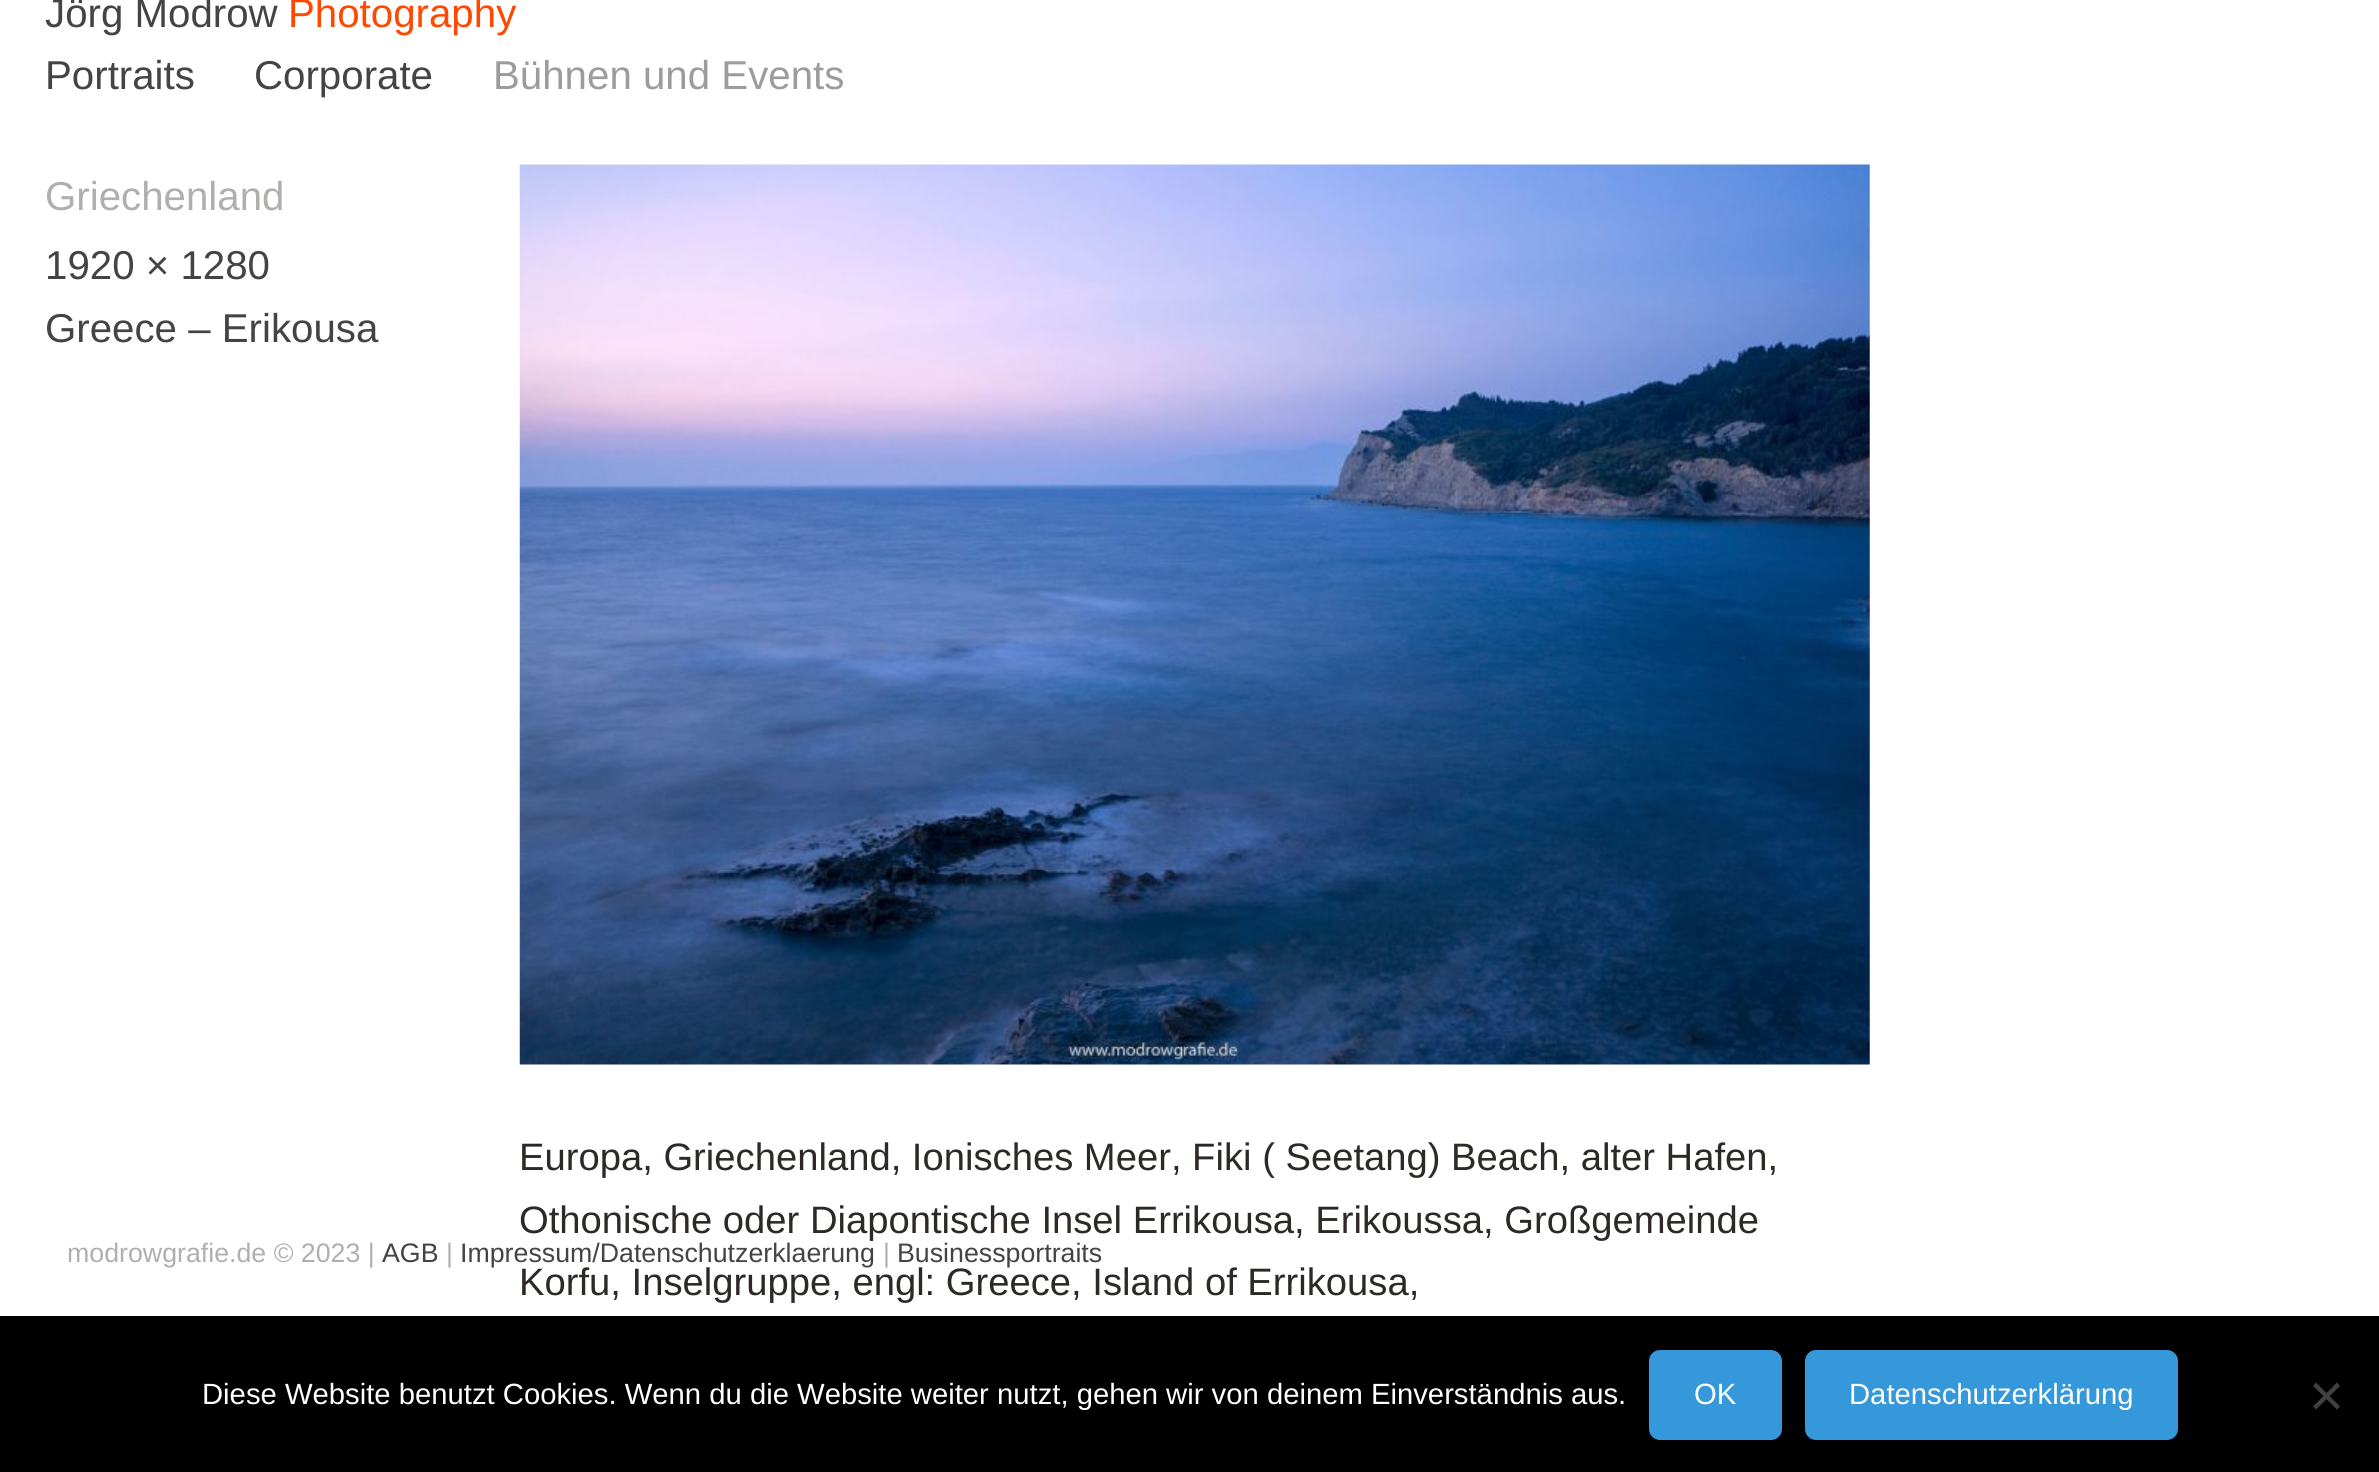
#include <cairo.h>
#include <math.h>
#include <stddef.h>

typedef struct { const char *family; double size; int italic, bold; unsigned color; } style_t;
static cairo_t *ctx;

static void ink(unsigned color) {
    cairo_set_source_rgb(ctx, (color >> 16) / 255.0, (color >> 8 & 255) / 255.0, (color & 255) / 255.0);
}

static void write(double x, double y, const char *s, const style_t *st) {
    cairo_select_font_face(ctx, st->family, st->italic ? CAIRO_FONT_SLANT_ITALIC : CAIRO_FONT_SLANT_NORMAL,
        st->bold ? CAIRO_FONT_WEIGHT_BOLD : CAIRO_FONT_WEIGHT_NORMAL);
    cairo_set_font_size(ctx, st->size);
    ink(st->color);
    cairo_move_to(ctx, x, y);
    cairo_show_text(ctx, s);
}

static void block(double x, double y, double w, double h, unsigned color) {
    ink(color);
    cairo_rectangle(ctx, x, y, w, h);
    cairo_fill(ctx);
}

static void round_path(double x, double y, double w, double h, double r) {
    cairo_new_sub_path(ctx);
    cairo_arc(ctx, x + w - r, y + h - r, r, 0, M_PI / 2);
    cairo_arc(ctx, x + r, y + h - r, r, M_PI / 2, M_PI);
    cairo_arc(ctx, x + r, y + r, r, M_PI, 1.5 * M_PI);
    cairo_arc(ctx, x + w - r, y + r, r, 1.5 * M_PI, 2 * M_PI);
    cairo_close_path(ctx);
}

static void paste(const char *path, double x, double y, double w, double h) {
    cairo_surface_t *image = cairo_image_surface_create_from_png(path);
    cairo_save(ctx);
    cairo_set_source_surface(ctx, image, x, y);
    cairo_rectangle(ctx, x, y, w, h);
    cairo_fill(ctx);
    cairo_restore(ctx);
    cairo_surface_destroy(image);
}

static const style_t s1 = {"Liberation Sans", 40.25, 0, 0, 0x444444};
static const style_t s2 = {"Liberation Sans", 40.25, 0, 0, 0xff4800};
static const style_t s3 = {"Liberation Sans", 40.25, 0, 0, 0x9c9c9c};
static const style_t s4 = {"Liberation Sans", 40.25, 0, 0, 0xafb0ae};
static const style_t s5 = {"Liberation Sans", 38.2, 0, 0, 0x2d2926};
static const style_t s6 = {"Liberation Sans", 26.75, 0, 0, 0xafb0ae};
static const style_t s7 = {"Liberation Sans", 26.75, 0, 0, 0x444444};
static const style_t s8 = {"Liberation Sans", 29.25, 0, 0, 0xffffff};

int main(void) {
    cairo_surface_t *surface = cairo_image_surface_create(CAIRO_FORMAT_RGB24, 2379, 1472);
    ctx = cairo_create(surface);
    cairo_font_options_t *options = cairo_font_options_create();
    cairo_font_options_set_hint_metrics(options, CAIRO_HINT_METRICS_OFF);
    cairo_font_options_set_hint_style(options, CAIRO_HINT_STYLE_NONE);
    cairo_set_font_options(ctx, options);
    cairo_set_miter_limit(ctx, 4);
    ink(0xffffff);
    cairo_paint(ctx);
    write(45, 27, "Jörg Modrow", &s1);
    write(288, 27, "Photography", &s2);
    write(45, 89, "Portraits", &s1);
    write(254, 89, "Corporate", &s1);
    write(493, 89, "Bühnen und Events", &s3);
    write(45, 210, "Griechenland", &s4);
    write(45, 279, "1920 × 1280", &s1);
    write(45, 342, "Greece – Erikousa", &s1);
    paste("pic1.png", 519, 164, 1351, 901);
    write(519, 1170, "Europa, Griechenland, Ionisches Meer, Fiki ( Seetang) Beach, alter Hafen,", &s5);
    write(519, 1233, "Othonische oder Diapontische Insel Errikousa, Erikoussa, Großgemeinde", &s5);
    write(519, 1295, "Korfu, Inselgruppe, engl: Greece, Island of Errikousa,", &s5);
    write(67, 1262, "modrowgrafie.de © 2023 |", &s6);
    write(382, 1262, "AGB", &s7);
    write(446, 1262, "|", &s6);
    write(460, 1262, "Impressum/Datenschutzerklaerung", &s7);
    write(883, 1262, "|", &s6);
    write(897, 1262, "Businessportraits", &s7);
    block(0, 1316, 2379, 156, 0x000000);
    write(202, 1404, "Diese Website benutzt Cookies. Wenn du die Website weiter nutzt, gehen wir von deinem Einverständnis aus.", &s8);
    ink(0x3498db);
    round_path(1649, 1350, 133, 90, 11);
    cairo_fill(ctx);
    write(1694, 1404, "OK", &s8);
    ink(0x3498db);
    round_path(1805, 1350, 373, 90, 11);
    cairo_fill(ctx);
    write(1849, 1404, "Datenschutzerklärung", &s8);
    ink(0x404040);
    cairo_new_path(ctx);
    cairo_move_to(ctx, 2337, 1382.5);
    cairo_line_to(ctx, 2340, 1386);
    cairo_line_to(ctx, 2316, 1409.5);
    cairo_line_to(ctx, 2313, 1406.5);
    cairo_close_path(ctx);
    cairo_fill(ctx);
    cairo_new_path(ctx);
    cairo_move_to(ctx, 2313, 1386);
    cairo_line_to(ctx, 2316, 1382.5);
    cairo_line_to(ctx, 2340, 1406.5);
    cairo_line_to(ctx, 2337, 1409.5);
    cairo_close_path(ctx);
    cairo_fill(ctx);
    cairo_surface_write_to_png(surface, "screenshot.png");
    cairo_font_options_destroy(options);
    cairo_destroy(ctx);
    cairo_surface_destroy(surface);
    return 0;
}
